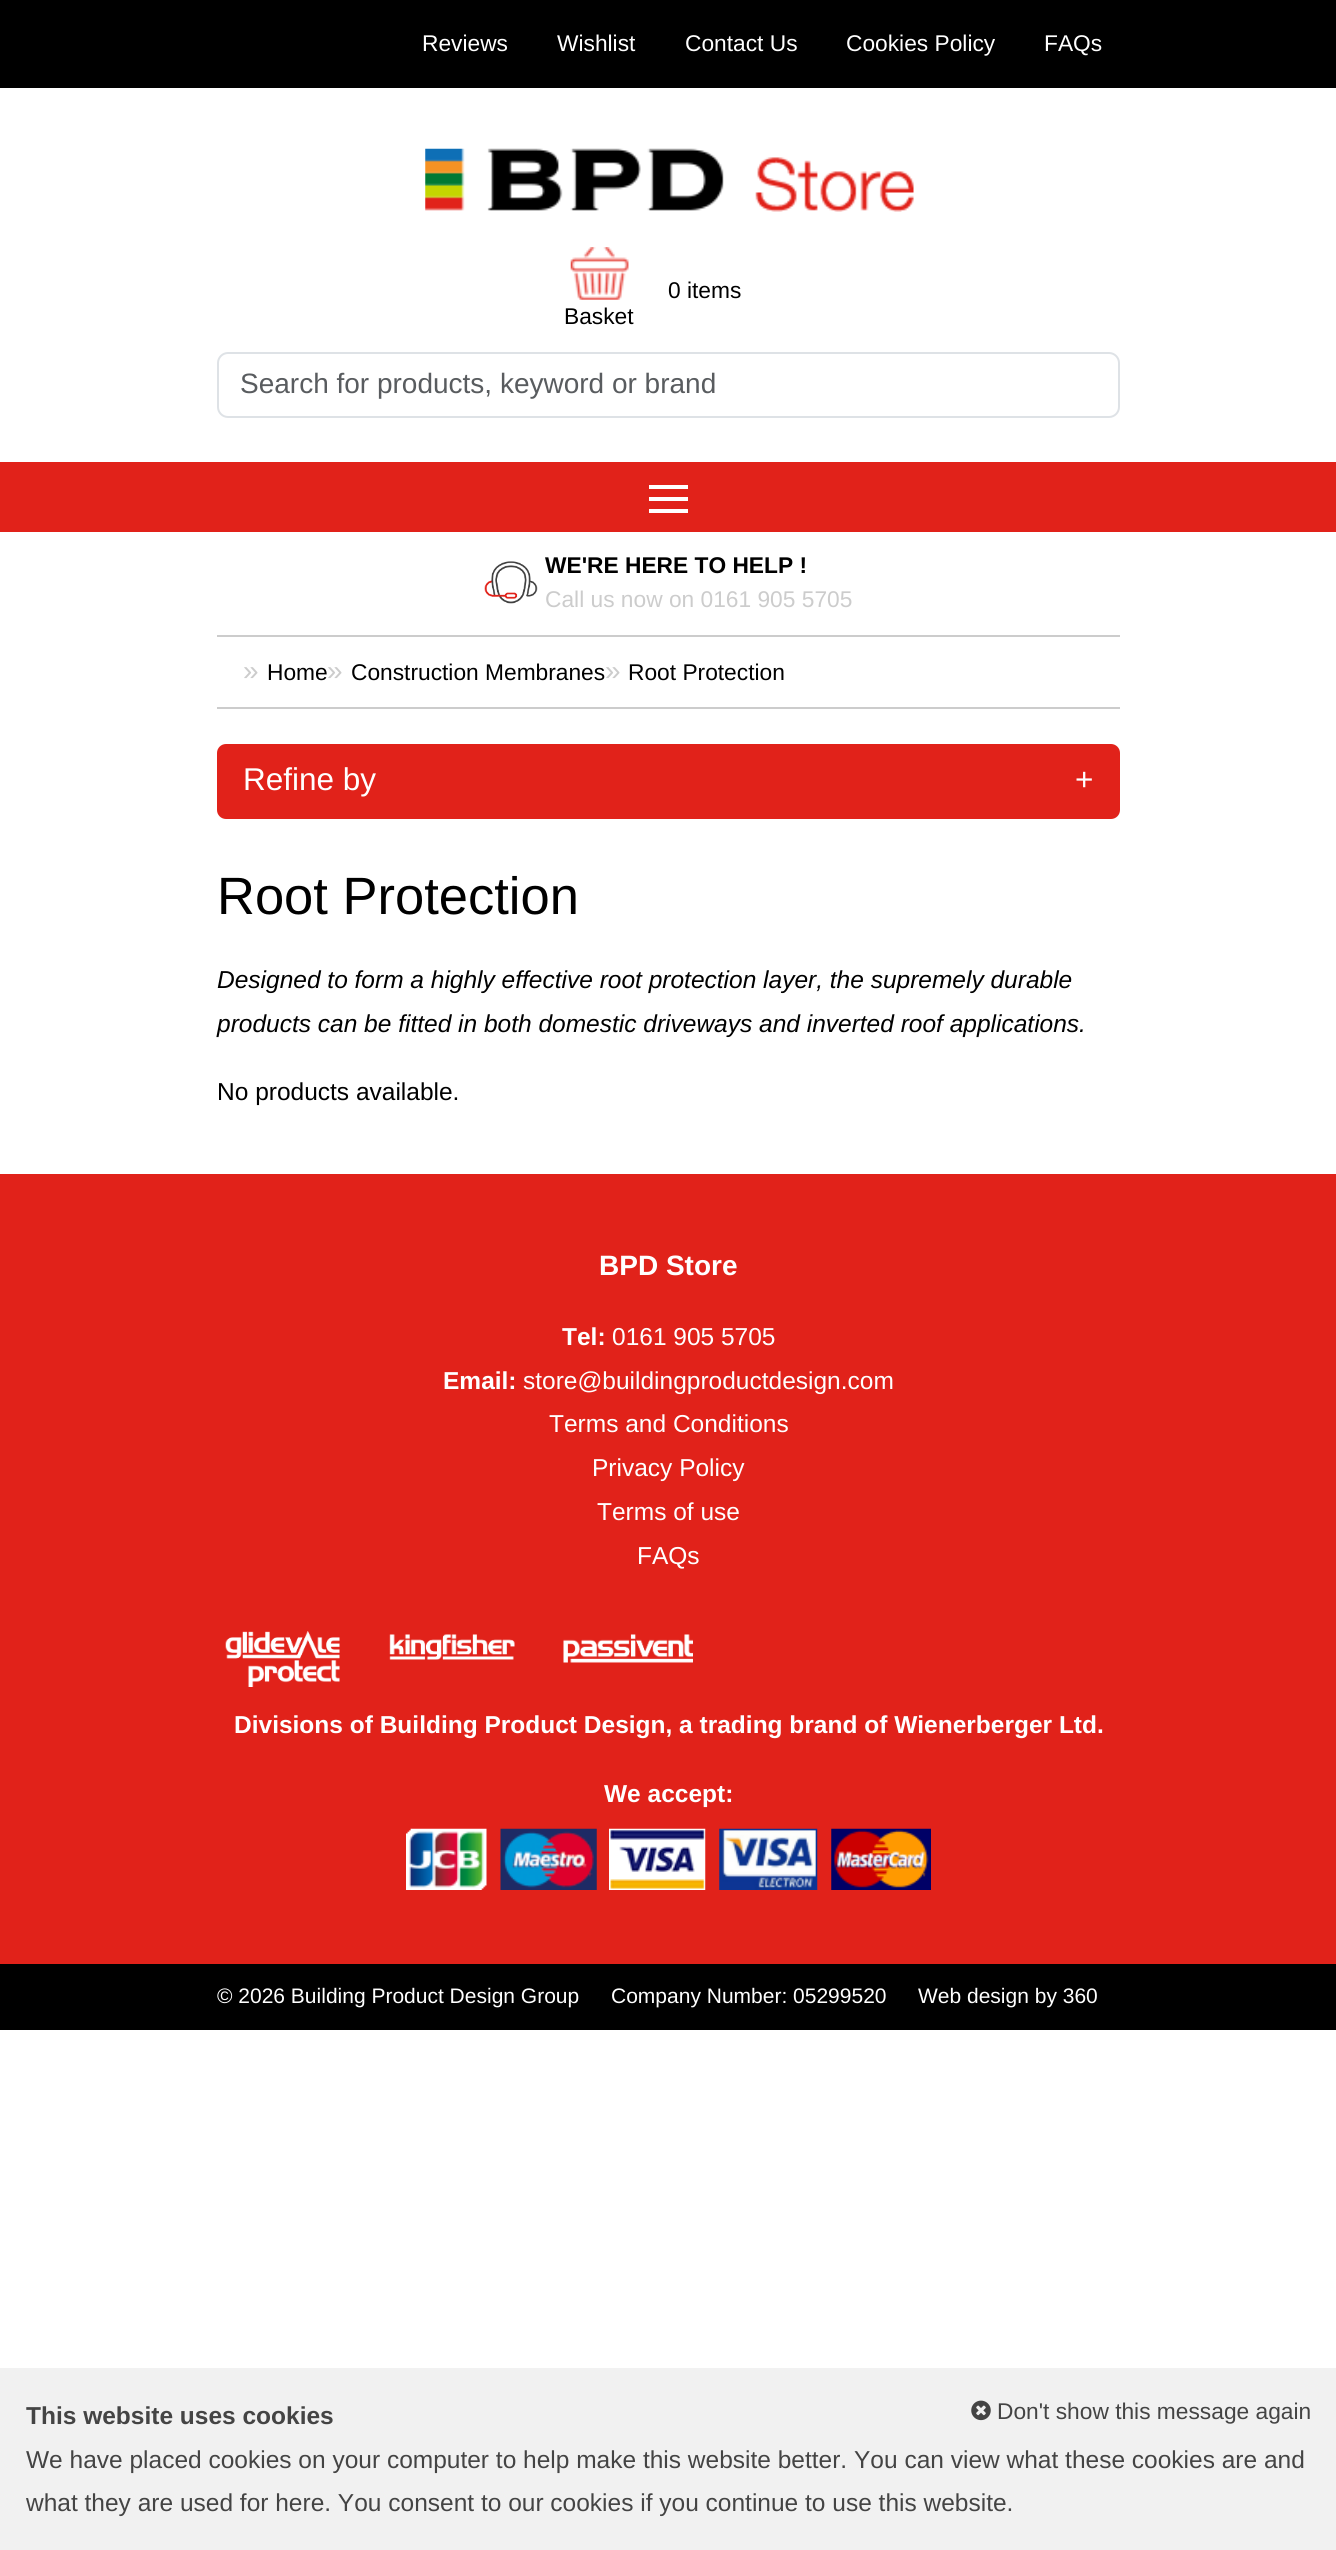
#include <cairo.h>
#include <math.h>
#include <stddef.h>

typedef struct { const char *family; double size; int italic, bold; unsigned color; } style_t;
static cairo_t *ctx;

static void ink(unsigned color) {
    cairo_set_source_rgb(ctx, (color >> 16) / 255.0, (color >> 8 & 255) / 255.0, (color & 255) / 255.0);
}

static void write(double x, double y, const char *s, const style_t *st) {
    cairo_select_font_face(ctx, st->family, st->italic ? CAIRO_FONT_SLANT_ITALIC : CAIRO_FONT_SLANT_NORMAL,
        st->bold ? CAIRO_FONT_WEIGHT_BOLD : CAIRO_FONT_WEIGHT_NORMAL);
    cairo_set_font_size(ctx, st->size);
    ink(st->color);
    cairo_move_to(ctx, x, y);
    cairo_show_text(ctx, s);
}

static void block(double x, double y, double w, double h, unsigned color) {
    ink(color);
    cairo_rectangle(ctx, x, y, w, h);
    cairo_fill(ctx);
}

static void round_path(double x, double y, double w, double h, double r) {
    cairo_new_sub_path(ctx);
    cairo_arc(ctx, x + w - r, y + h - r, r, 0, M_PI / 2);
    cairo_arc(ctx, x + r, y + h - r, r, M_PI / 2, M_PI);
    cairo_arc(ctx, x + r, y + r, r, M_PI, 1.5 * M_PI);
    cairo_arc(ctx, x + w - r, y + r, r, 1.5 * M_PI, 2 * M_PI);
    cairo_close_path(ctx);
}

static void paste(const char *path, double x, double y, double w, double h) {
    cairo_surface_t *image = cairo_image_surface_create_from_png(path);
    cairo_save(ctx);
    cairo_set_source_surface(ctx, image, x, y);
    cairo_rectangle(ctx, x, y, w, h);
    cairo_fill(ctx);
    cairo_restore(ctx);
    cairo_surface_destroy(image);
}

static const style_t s1 = {"Liberation Sans", 22.75, 0, 0, 0xffffff};
static const style_t s2 = {"Liberation Sans", 22.75, 0, 0, 0x000000};
static const style_t s3 = {"Liberation Sans", 28, 0, 0, 0x595c5f};
static const style_t s4 = {"Liberation Sans", 22.75, 0, 1, 0x000000};
static const style_t s5 = {"Liberation Sans", 22.75, 0, 0, 0xcccccc};
static const style_t s6 = {"Liberation Sans", 28, 0, 0, 0xcccccc};
static const style_t s7 = {"Liberation Sans", 31.5, 0, 0, 0xffffff};
static const style_t s8 = {"Liberation Sans", 52.5, 0, 0, 0x000000};
static const style_t s9 = {"Liberation Sans", 24.5, 1, 0, 0x000000};
static const style_t s10 = {"Liberation Sans", 24.5, 0, 0, 0x000000};
static const style_t s11 = {"Liberation Sans", 28, 0, 1, 0xffffff};
static const style_t s12 = {"Liberation Sans", 24.5, 0, 1, 0xffffff};
static const style_t s13 = {"Liberation Sans", 24.5, 0, 0, 0xffffff};
static const style_t s14 = {"Liberation Sans", 21, 0, 0, 0xffffff};
static const style_t s15 = {"Liberation Sans", 22.75, 0, 0, 0x444444};
static const style_t s16 = {"Liberation Sans", 24.5, 0, 1, 0x444444};
static const style_t s17 = {"Liberation Sans", 24.5, 0, 0, 0x444444};

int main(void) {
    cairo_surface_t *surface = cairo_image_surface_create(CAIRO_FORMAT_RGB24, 1336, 2550);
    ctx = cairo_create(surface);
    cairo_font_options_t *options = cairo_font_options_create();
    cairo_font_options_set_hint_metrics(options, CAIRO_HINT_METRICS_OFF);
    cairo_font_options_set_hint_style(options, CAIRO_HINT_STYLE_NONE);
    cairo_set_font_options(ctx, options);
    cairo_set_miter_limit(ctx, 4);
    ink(0xffffff);
    cairo_paint(ctx);
    block(0, 0, 1336, 88, 0x000000);
    write(422, 51, "Reviews", &s1);
    write(557, 51, "Wishlist", &s1);
    write(685, 51, "Contact Us", &s1);
    write(846, 51, "Cookies Policy", &s1);
    write(1044, 51, "FAQs", &s1);
    paste("pic1.png", 425, 148, 489, 64);
    write(668, 298, "0 items", &s2);
    paste("pic2.png", 570, 247, 59, 53);
    write(564, 324, "Basket", &s2);
    round_path(218, 353, 901, 64, 10);
    ink(0xdee2e6);
    cairo_stroke(ctx);
    write(240, 393, "Search for products, keyword or brand", &s3);
    block(0, 462, 1336, 70, 0xe1221a);
    block(649, 497, 39, 4, 0xffffff);
    block(649, 485, 39, 4, 0xffffff);
    block(649, 509, 39, 4, 0xffffff);
    paste("pic3.png", 484, 561, 54, 43);
    write(545, 573, "WE'RE HERE TO HELP !", &s4);
    write(545, 607, "Call us now on 0161 905 5705", &s5);
    block(217, 635, 903, 2, 0xcccccc);
    block(217, 707, 903, 2, 0xcccccc);
    write(243, 680, "»", &s6);
    write(267, 680, "Home", &s2);
    write(327, 680, "»", &s6);
    write(351, 680, "Construction Membranes", &s2);
    write(605, 680, "»", &s6);
    write(628, 680, "Root Protection", &s2);
    ink(0xe1221a);
    round_path(217, 744, 903, 75, 9);
    cairo_fill(ctx);
    write(243, 790, "Refine by", &s7);
    write(1075, 790, "+", &s7);
    write(217, 914, "Root Protection", &s8);
    write(217, 988, "Designed to form a highly effective root protection layer, the supremely durable", &s9);
    write(217, 1032, "products can be fitted in both domestic driveways and inverted roof applications.", &s9);
    write(217, 1100, "No products available.", &s10);
    block(0, 1174, 1336, 790, 0xe1221a);
    write(599, 1275, "BPD Store", &s11);
    write(562, 1345, "Tel:", &s12);
    write(612, 1345, "0161 905 5705", &s13);
    write(443, 1389, "Email:", &s12);
    write(523, 1389, "store@buildingproductdesign.com", &s13);
    write(549, 1432, "Terms and Conditions", &s13);
    write(592, 1476, "Privacy Policy", &s13);
    write(597, 1520, "Terms of use", &s13);
    write(637, 1564, "FAQs", &s13);
    paste("pic4.png", 225, 1631, 115, 56);
    paste("pic5.png", 389, 1634, 126, 26);
    paste("pic6.png", 563, 1634, 130, 29);
    write(234, 1733, "Divisions of Building Product Design, a trading brand of Wienerberger Ltd.", &s12);
    write(604, 1802, "We accept:", &s12);
    paste("pic7.png", 406, 1828, 81, 62);
    paste("pic8.png", 500, 1828, 97, 62);
    paste("pic9.png", 609, 1828, 97, 62);
    paste("pic10.png", 719, 1828, 99, 62);
    paste("pic11.png", 831, 1828, 100, 62);
    block(0, 1964, 1336, 66, 0x000000);
    write(217, 2003, "© 2026 Building Product Design Group", &s14);
    write(611, 2003, "Company Number: 05299520", &s14);
    write(918, 2003, "Web design by 360", &s14);
    block(0, 2368, 1336, 182, 0xf1f1f1);
    paste("pic12.png", 971, 2400, 20, 21);
    write(997, 2419, "Don't show this message again", &s15);
    write(26, 2424, "This website uses cookies", &s16);
    write(26, 2468, "We have placed cookies on your computer to help make this website better. You can view what these cookies are and", &s17);
    write(26, 2511, "what they are used for here. You consent to our cookies if you continue to use this website.", &s17);
    cairo_surface_write_to_png(surface, "screenshot.png");
    cairo_font_options_destroy(options);
    cairo_destroy(ctx);
    cairo_surface_destroy(surface);
    return 0;
}
